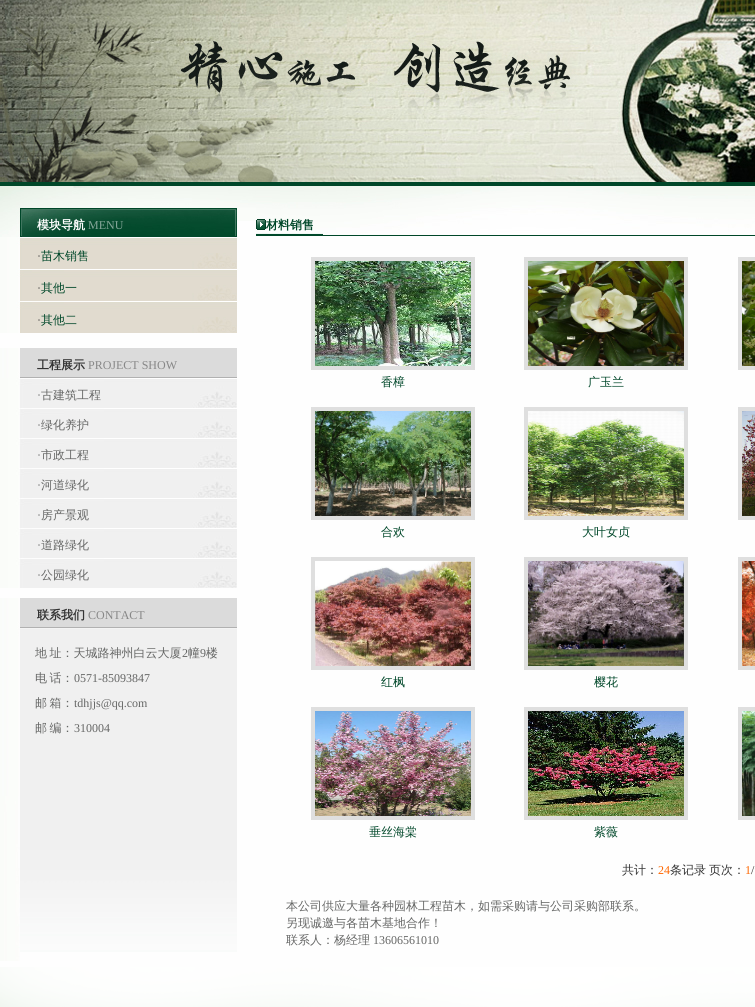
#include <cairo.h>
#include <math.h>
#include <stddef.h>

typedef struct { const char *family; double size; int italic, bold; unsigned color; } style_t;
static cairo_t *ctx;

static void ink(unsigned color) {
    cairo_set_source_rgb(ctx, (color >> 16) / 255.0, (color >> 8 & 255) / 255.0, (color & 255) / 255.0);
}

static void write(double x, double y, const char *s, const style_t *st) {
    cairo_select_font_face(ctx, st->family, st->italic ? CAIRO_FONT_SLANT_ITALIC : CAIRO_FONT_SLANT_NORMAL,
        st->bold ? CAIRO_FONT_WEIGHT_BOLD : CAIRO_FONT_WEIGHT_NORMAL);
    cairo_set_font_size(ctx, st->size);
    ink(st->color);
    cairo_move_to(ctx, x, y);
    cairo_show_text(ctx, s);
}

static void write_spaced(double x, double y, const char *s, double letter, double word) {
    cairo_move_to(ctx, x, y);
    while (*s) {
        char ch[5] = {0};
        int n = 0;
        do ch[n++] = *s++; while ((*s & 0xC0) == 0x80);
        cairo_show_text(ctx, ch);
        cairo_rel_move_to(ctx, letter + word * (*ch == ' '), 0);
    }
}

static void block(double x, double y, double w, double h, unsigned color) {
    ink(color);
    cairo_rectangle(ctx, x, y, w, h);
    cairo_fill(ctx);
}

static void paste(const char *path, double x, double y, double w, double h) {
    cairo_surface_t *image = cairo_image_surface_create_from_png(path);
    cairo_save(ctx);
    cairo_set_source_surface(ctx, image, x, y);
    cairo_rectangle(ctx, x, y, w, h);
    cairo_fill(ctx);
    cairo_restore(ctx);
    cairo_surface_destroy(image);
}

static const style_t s1 = {"WenQuanYi Zen Hei", 12, 0, 1, 0xffffff};
static const style_t s2 = {"Liberation Serif", 12, 0, 0, 0x84a698};
static const style_t s3 = {"Liberation Serif", 12, 0, 0, 0x464544};
static const style_t s4 = {"WenQuanYi Zen Hei Medium", 12, 0, 0, 0x004729};
static const style_t s5 = {"WenQuanYi Zen Hei", 12, 0, 1, 0x333333};
static const style_t s6 = {"Liberation Serif", 12, 0, 0, 0x878787};
static const style_t s7 = {"Liberation Serif", 12, 0, 0, 0x656665};
static const style_t s8 = {"WenQuanYi Zen Hei Medium", 12, 0, 0, 0x656665};
static const style_t s9 = {"WenQuanYi Zen Hei", 12, 0, 1, 0x004729};
static const style_t s10 = {"WenQuanYi Zen Hei Medium", 12, 0, 0, 0x333333};
static const style_t s11 = {"Liberation Serif", 12, 0, 0, 0xff6600};
static const style_t s12 = {"Liberation Serif", 12, 0, 0, 0x333333};

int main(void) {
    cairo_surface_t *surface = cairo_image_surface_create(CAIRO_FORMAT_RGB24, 755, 1007);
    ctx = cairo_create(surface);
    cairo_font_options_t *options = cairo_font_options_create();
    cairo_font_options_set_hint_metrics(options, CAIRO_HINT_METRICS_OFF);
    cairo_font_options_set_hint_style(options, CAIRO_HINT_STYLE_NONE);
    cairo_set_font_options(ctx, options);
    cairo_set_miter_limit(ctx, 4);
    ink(0x004729);
    cairo_paint(ctx);
    paste("pic1.png", 0, 0, 755, 182);
    block(0, 221, 755, 746, 0xfefefe);
    paste("pic2.png", 0, 186, 755, 22);
    block(237, 208, 19, 13, 0xfafcf9);
    paste("pic3.png", 0, 208, 237, 29);
    write(37, 229, "模块导航", &s1);
    write(88, 229, "MENU", &s2);
    paste("pic4.png", 0, 237, 237, 32);
    write(37, 260, "·", &s3);
    write(41, 260, "苗木销售", &s4);
    paste("pic4.png", 0, 269, 237, 32);
    write(37, 292, "·", &s3);
    write(41, 292, "其他一", &s4);
    paste("pic4.png", 0, 301, 237, 32);
    write(37, 324, "·", &s3);
    write(41, 324, "其他二", &s4);
    paste("pic5.png", 0, 348, 237, 30);
    write(37, 369, "工程展示", &s5);
    write(88, 369, "PROJECT SHOW", &s6);
    paste("pic6.png", 0, 378, 237, 30);
    write(37, 399, "·", &s7);
    write(41, 399, "古建筑工程", &s8);
    paste("pic6.png", 0, 408, 237, 30);
    write(37, 429, "·", &s7);
    write(41, 429, "绿化养护", &s8);
    paste("pic6.png", 0, 438, 237, 30);
    write(37, 459, "·", &s7);
    write(41, 459, "市政工程", &s8);
    paste("pic6.png", 0, 468, 237, 30);
    write(37, 489, "·", &s7);
    write(41, 489, "河道绿化", &s8);
    paste("pic6.png", 0, 498, 237, 30);
    write(37, 519, "·", &s7);
    write(41, 519, "房产景观", &s8);
    paste("pic6.png", 0, 528, 237, 30);
    write(37, 549, "·", &s7);
    write(41, 549, "道路绿化", &s8);
    paste("pic6.png", 0, 558, 237, 30);
    write(37, 579, "·", &s7);
    write(41, 579, "公园绿化", &s8);
    paste("pic5.png", 0, 598, 237, 30);
    write(37, 619, "联系我们", &s5);
    write(88, 619, "CONTACT", &s6);
    paste("pic7.png", 20, 628, 5, 324);
    paste("pic8.png", 0, 628, 20, 333);
    paste("pic9.png", 25, 628, 212, 324);
    cairo_select_font_face(ctx, "WenQuanYi Zen Hei Medium", CAIRO_FONT_SLANT_NORMAL, CAIRO_FONT_WEIGHT_NORMAL);
    ink(0x656665);
    write_spaced(35, 657, "地 址：天城路神州白云大厦", 0, -1);
    write(182, 657, "2", &s7);
    write(188, 657, "幢", &s8);
    write(200, 657, "9", &s7);
    write(206, 657, "楼", &s8);
    write_spaced(35, 682, "电 话：", 0, -1);
    write(74, 682, "0571-85093847", &s7);
    cairo_select_font_face(ctx, "WenQuanYi Zen Hei Medium", CAIRO_FONT_SLANT_NORMAL, CAIRO_FONT_WEIGHT_NORMAL);
    write_spaced(35, 707, "邮 箱：", 0, -1);
    write(74, 707, "tdhjjs@qq.com", &s7);
    cairo_select_font_face(ctx, "WenQuanYi Zen Hei Medium", CAIRO_FONT_SLANT_NORMAL, CAIRO_FONT_WEIGHT_NORMAL);
    write_spaced(35, 732, "邮 编：", 0, -1);
    write(74, 732, "310004", &s7);
    paste("pic10.png", 256, 208, 499, 28);
    write(266, 229, "材料销售", &s9);
    cairo_rectangle(ctx, 740, 259, 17, 109);
    ink(0xdfdfdf);
    cairo_set_line_width(ctx, 4);
    cairo_stroke(ctx);
    paste("pic11.png", 742, 261, 13, 105);
    cairo_rectangle(ctx, 313, 259, 160, 109);
    cairo_stroke(ctx);
    paste("pic12.png", 315, 261, 156, 105);
    write(381, 386, "香樟", &s4);
    cairo_rectangle(ctx, 526, 259, 160, 109);
    ink(0xdfdfdf);
    cairo_stroke(ctx);
    paste("pic13.png", 528, 261, 156, 105);
    write(588, 386, "广玉兰", &s4);
    cairo_rectangle(ctx, 740, 409, 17, 109);
    ink(0xdfdfdf);
    cairo_stroke(ctx);
    paste("pic14.png", 742, 411, 13, 105);
    cairo_rectangle(ctx, 313, 409, 160, 109);
    cairo_stroke(ctx);
    paste("pic15.png", 315, 411, 156, 105);
    write(381, 536, "合欢", &s4);
    cairo_rectangle(ctx, 526, 409, 160, 109);
    ink(0xdfdfdf);
    cairo_stroke(ctx);
    paste("pic16.png", 528, 411, 156, 105);
    write(582, 536, "大叶女贞", &s4);
    cairo_rectangle(ctx, 740, 559, 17, 109);
    ink(0xdfdfdf);
    cairo_stroke(ctx);
    paste("pic17.png", 742, 561, 13, 105);
    cairo_rectangle(ctx, 313, 559, 160, 109);
    cairo_stroke(ctx);
    paste("pic18.png", 315, 561, 156, 105);
    write(381, 686, "红枫", &s4);
    cairo_rectangle(ctx, 526, 559, 160, 109);
    ink(0xdfdfdf);
    cairo_stroke(ctx);
    paste("pic19.png", 528, 561, 156, 105);
    write(594, 686, "樱花", &s4);
    cairo_rectangle(ctx, 740, 709, 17, 109);
    ink(0xdfdfdf);
    cairo_stroke(ctx);
    paste("pic20.png", 742, 711, 13, 105);
    cairo_rectangle(ctx, 313, 709, 160, 109);
    cairo_stroke(ctx);
    paste("pic21.png", 315, 711, 156, 105);
    write(369, 836, "垂丝海棠", &s4);
    cairo_rectangle(ctx, 526, 709, 160, 109);
    ink(0xdfdfdf);
    cairo_stroke(ctx);
    paste("pic22.png", 528, 711, 156, 105);
    write(594, 836, "紫薇", &s4);
    write(622, 874, "共计：", &s10);
    write(658, 874, "24", &s11);
    write(670, 874, "条记录", &s10);
    write(709, 874, "页次：", &s10);
    write(745, 874, "1", &s11);
    write(751, 874, "/", &s12);
    write(286, 910, "本公司供应大量各种园林工程苗木，如需采购请与公司采购部联系。", &s8);
    write(286, 927, "另现诚邀与各苗木基地合作！", &s8);
    write(286, 944, "联系人：杨经理", &s8);
    write(373, 944, "13606561010", &s7);
    paste("pic23.png", 0, 967, 755, 40);
    cairo_surface_write_to_png(surface, "screenshot.png");
    cairo_font_options_destroy(options);
    cairo_destroy(ctx);
    cairo_surface_destroy(surface);
    return 0;
}
